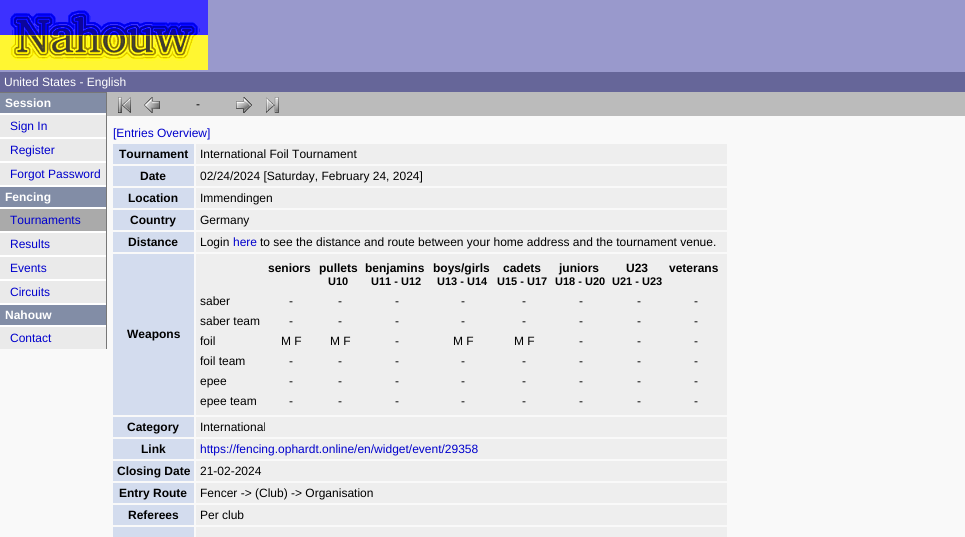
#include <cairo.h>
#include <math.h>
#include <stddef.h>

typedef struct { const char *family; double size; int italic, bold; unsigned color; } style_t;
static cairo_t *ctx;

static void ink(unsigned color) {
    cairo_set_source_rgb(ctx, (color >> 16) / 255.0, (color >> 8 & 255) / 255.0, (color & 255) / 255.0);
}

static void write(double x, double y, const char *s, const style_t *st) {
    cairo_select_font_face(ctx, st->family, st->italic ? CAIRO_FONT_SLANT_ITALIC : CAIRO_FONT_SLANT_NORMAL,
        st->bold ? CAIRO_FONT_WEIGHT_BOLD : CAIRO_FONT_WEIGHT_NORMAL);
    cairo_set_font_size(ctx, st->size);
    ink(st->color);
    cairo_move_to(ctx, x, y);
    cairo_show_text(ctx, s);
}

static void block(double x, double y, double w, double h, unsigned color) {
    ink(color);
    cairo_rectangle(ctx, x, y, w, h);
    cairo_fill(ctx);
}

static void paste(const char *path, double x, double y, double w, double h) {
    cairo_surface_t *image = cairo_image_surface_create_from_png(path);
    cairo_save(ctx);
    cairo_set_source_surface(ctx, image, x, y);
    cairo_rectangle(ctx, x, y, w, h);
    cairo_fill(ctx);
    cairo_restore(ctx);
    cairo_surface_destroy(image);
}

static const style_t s1 = {"Liberation Sans", 12, 0, 0, 0xffffff};
static const style_t s2 = {"Liberation Sans", 12, 0, 1, 0xffffff};
static const style_t s3 = {"Liberation Sans", 12, 0, 0, 0x0000cc};
static const style_t s4 = {"Liberation Sans", 12, 0, 0, 0x000000};
static const style_t s5 = {"Liberation Sans", 12, 0, 1, 0x000000};
static const style_t s6 = {"Liberation Sans", 11, 0, 1, 0x000000};

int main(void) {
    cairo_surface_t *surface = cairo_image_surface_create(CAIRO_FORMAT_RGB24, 965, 537);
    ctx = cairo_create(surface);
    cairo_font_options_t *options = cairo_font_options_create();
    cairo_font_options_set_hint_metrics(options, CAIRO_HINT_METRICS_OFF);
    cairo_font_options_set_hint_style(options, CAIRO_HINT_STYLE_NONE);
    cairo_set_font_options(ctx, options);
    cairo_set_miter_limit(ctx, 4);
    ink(0xf9f9f9);
    cairo_paint(ctx);
    block(0, 0, 965, 72, 0x9999cc);
    paste("pic1.png", 0, 0, 208, 70);
    block(0, 72, 965, 20, 0x666699);
    write(4, 86, "United States - English", &s1);
    block(0, 113, 106, 214, 0xffffff);
    block(0, 92, 107, 1, 0x777777);
    block(106, 92, 1, 257, 0x777777);
    block(0, 93, 106, 20, 0x828da6);
    write(5, 107, "Session", &s2);
    block(0, 115, 106, 22, 0xeaeaea);
    write(10, 130, "Sign In", &s3);
    block(0, 139, 106, 22, 0xeaeaea);
    write(10, 154, "Register", &s3);
    block(0, 163, 106, 22, 0xeaeaea);
    write(10, 178, "Forgot Password", &s3);
    block(0, 187, 106, 20, 0x828da6);
    write(5, 201, "Fencing", &s2);
    block(0, 209, 106, 22, 0xaaaaaa);
    write(10, 224, "Tournaments", &s3);
    block(0, 233, 106, 22, 0xeaeaea);
    write(10, 248, "Results", &s3);
    block(0, 257, 106, 22, 0xeaeaea);
    write(10, 272, "Events", &s3);
    block(0, 281, 106, 22, 0xeaeaea);
    write(10, 296, "Circuits", &s3);
    block(0, 305, 106, 20, 0x828da6);
    write(5, 319, "Nahouw", &s2);
    block(0, 327, 106, 22, 0xeaeaea);
    write(10, 342, "Contact", &s3);
    block(107, 92, 858, 24, 0xbbbbbb);
    paste("pic2.png", 118, 97, 13, 16);
    paste("pic3.png", 144, 97, 16, 16);
    write(196, 108, "-", &s4);
    paste("pic4.png", 236, 97, 16, 16);
    paste("pic5.png", 266, 97, 13, 16);
    write(113, 137, "[Entries Overview]", &s3);
    block(113, 144, 81, 20, 0xd3dcee);
    write(119, 158, "Tournament", &s5);
    block(196, 144, 531, 20, 0xeeeeee);
    write(200, 158, "International Foil Tournament", &s4);
    block(113, 166, 81, 20, 0xd3dcee);
    write(140, 180, "Date", &s5);
    block(196, 166, 531, 20, 0xeeeeee);
    write(200, 180, "02/24/2024 [Saturday, February 24, 2024]", &s4);
    block(113, 188, 81, 20, 0xd3dcee);
    write(128, 202, "Location", &s5);
    block(196, 188, 531, 20, 0xeeeeee);
    write(200, 202, "Immendingen", &s4);
    block(113, 210, 81, 20, 0xd3dcee);
    write(130, 224, "Country", &s5);
    block(196, 210, 531, 20, 0xeeeeee);
    write(200, 224, "Germany", &s4);
    block(113, 232, 81, 20, 0xd3dcee);
    write(128, 246, "Distance", &s5);
    block(196, 232, 531, 20, 0xeeeeee);
    write(200, 246, "Login", &s4);
    write(233, 246, "here", &s3);
    write(260, 246, "to see the distance and route between your home address and the tournament venue.", &s4);
    block(113, 254, 81, 161, 0xd3dcee);
    write(127, 338, "Weapons", &s5);
    block(196, 254, 531, 161, 0xeeeeee);
    write(268, 272, "seniors", &s5);
    write(319, 272, "pullets", &s5);
    write(365, 272, "benjamins", &s5);
    write(433, 272, "boys/girls", &s5);
    write(503, 272, "cadets", &s5);
    write(559, 272, "juniors", &s5);
    write(626, 272, "U23", &s5);
    write(669, 272, "veterans", &s5);
    write(328, 285, "U10", &s6);
    write(371, 285, "U11 - U12", &s6);
    write(437, 285, "U13 - U14", &s6);
    write(497, 285, "U15 - U17", &s6);
    write(555, 285, "U18 - U20", &s6);
    write(612, 285, "U21 - U23", &s6);
    write(200, 305, "saber", &s4);
    write(289, 305, "-", &s4);
    write(338, 305, "-", &s4);
    write(395, 305, "-", &s4);
    write(461, 305, "-", &s4);
    write(522, 305, "-", &s4);
    write(579, 305, "-", &s4);
    write(637, 305, "-", &s4);
    write(694, 305, "-", &s4);
    write(200, 325, "saber team", &s4);
    write(289, 325, "-", &s4);
    write(338, 325, "-", &s4);
    write(395, 325, "-", &s4);
    write(461, 325, "-", &s4);
    write(522, 325, "-", &s4);
    write(579, 325, "-", &s4);
    write(637, 325, "-", &s4);
    write(694, 325, "-", &s4);
    write(200, 345, "foil", &s4);
    write(281, 345, "M F", &s4);
    write(330, 345, "M F", &s4);
    write(395, 345, "-", &s4);
    write(453, 345, "M F", &s4);
    write(514, 345, "M F", &s4);
    write(579, 345, "-", &s4);
    write(637, 345, "-", &s4);
    write(694, 345, "-", &s4);
    write(200, 365, "foil team", &s4);
    write(289, 365, "-", &s4);
    write(338, 365, "-", &s4);
    write(395, 365, "-", &s4);
    write(461, 365, "-", &s4);
    write(522, 365, "-", &s4);
    write(579, 365, "-", &s4);
    write(637, 365, "-", &s4);
    write(694, 365, "-", &s4);
    write(200, 385, "epee", &s4);
    write(289, 385, "-", &s4);
    write(338, 385, "-", &s4);
    write(395, 385, "-", &s4);
    write(461, 385, "-", &s4);
    write(522, 385, "-", &s4);
    write(579, 385, "-", &s4);
    write(637, 385, "-", &s4);
    write(694, 385, "-", &s4);
    write(200, 405, "epee team", &s4);
    write(289, 405, "-", &s4);
    write(338, 405, "-", &s4);
    write(395, 405, "-", &s4);
    write(461, 405, "-", &s4);
    write(522, 405, "-", &s4);
    write(579, 405, "-", &s4);
    write(637, 405, "-", &s4);
    write(694, 405, "-", &s4);
    block(113, 417, 81, 20, 0xd3dcee);
    write(127, 431, "Category", &s5);
    block(196, 417, 531, 20, 0xeeeeee);
    write(200, 431, "International", &s4);
    block(113, 439, 81, 20, 0xd3dcee);
    write(141, 453, "Link", &s5);
    block(196, 439, 531, 20, 0xeeeeee);
    write(200, 453, "https://fencing.ophardt.online/en/widget/event/29358", &s3);
    block(113, 461, 81, 20, 0xd3dcee);
    write(117, 475, "Closing Date", &s5);
    block(196, 461, 531, 20, 0xeeeeee);
    write(200, 475, "21-02-2024", &s4);
    block(113, 483, 81, 20, 0xd3dcee);
    write(119, 497, "Entry Route", &s5);
    block(196, 483, 531, 20, 0xeeeeee);
    write(200, 497, "Fencer -> (Club) -> Organisation", &s4);
    block(113, 505, 81, 20, 0xd3dcee);
    write(128, 519, "Referees", &s5);
    block(196, 505, 531, 20, 0xeeeeee);
    write(200, 519, "Per club", &s4);
    block(113, 527, 81, 10, 0xd3dcee);
    block(196, 527, 531, 10, 0xeeeeee);
    cairo_surface_write_to_png(surface, "screenshot.png");
    cairo_font_options_destroy(options);
    cairo_destroy(ctx);
    cairo_surface_destroy(surface);
    return 0;
}
